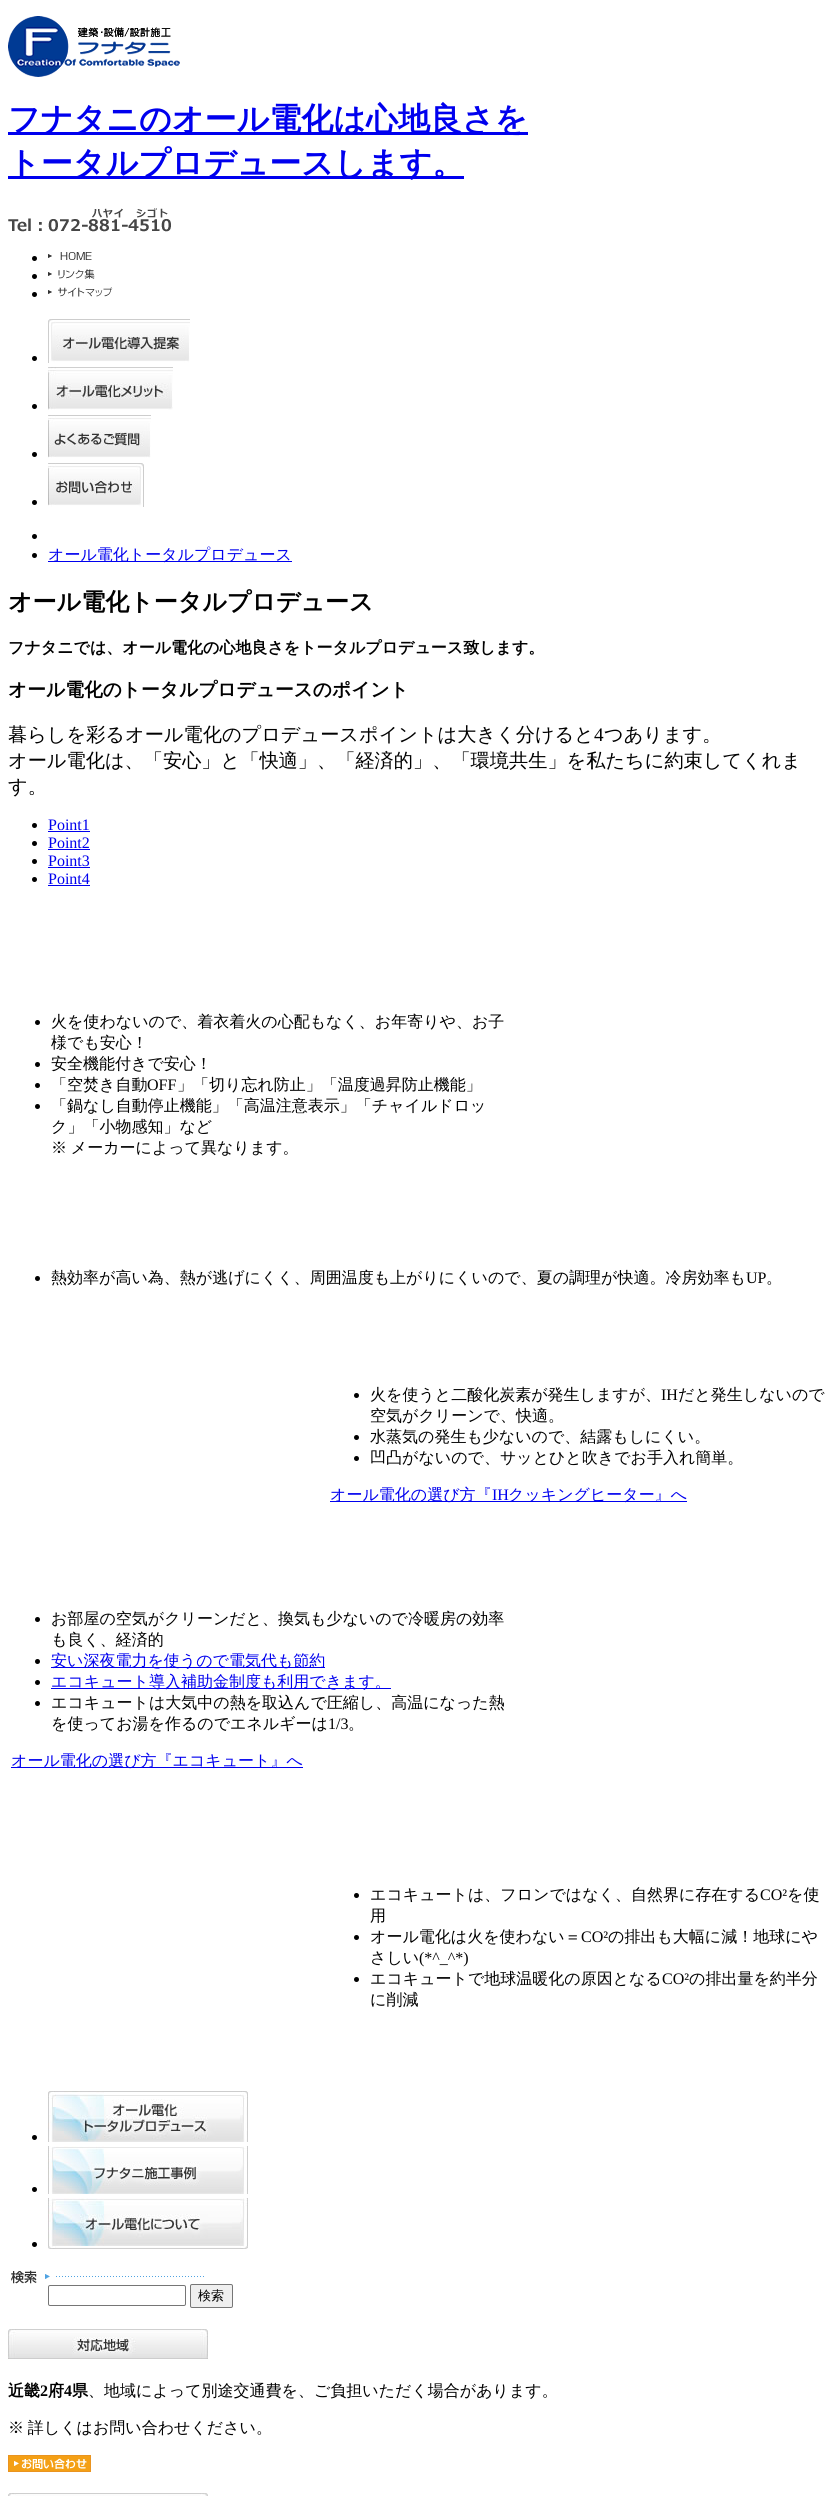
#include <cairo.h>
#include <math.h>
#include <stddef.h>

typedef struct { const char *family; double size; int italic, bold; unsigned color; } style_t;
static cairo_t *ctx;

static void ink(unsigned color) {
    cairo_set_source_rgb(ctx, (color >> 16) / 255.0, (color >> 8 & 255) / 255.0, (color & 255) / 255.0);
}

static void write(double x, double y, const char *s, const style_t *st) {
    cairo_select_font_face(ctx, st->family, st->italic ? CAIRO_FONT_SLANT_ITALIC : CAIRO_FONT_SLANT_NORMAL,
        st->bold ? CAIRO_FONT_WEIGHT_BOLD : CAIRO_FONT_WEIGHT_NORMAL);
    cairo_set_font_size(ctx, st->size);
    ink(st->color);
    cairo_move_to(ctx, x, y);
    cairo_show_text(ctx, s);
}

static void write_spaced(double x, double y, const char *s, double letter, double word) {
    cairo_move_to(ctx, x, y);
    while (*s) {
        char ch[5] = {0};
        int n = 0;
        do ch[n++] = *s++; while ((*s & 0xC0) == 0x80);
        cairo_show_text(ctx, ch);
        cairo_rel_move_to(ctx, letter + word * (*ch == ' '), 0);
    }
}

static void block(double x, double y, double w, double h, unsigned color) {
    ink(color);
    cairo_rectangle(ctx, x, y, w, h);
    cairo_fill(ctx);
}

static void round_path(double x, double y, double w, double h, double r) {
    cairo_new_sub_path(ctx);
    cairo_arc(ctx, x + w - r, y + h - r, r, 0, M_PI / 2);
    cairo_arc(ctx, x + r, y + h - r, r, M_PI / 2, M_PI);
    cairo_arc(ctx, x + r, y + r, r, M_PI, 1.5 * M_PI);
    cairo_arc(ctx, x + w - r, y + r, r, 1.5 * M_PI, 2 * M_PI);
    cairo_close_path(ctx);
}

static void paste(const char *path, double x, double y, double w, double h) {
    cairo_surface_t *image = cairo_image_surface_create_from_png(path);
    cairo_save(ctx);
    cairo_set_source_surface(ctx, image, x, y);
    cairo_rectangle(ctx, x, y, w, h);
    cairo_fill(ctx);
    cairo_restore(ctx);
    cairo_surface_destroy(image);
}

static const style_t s1 = {"WenQuanYi Zen Hei", 32, 0, 1, 0x0000ee};
static const style_t s2 = {"WenQuanYi Zen Hei Medium", 16, 0, 0, 0x0000ee};
static const style_t s3 = {"WenQuanYi Zen Hei", 24, 0, 1, 0x000000};
static const style_t s4 = {"WenQuanYi Zen Hei", 16, 0, 1, 0x000000};
static const style_t s5 = {"WenQuanYi Zen Hei", 18.75, 0, 1, 0x000000};
static const style_t s6 = {"WenQuanYi Zen Hei Medium", 19.2, 0, 0, 0x000000};
static const style_t s7 = {"Liberation Serif", 19.2, 0, 0, 0x000000};
static const style_t s8 = {"Liberation Serif", 16, 0, 0, 0x0000ee};
static const style_t s9 = {"WenQuanYi Zen Hei Medium", 16, 0, 0, 0x000000};
static const style_t s10 = {"Liberation Serif", 16, 0, 0, 0x000000};
static const style_t s11 = {"WenQuanYi Zen Hei Medium", 13, 0, 0, 0x000000};
static const style_t s12 = {"Liberation Serif", 16, 0, 1, 0x000000};

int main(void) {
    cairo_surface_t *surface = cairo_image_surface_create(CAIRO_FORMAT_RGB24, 836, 2496);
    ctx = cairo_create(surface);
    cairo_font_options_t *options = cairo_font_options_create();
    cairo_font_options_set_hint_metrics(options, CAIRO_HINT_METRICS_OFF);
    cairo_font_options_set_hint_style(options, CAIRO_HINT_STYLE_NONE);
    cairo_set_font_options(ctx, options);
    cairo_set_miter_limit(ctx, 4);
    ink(0xffffff);
    cairo_paint(ctx);
    paste("pic1.png", 8, 16, 172, 61);
    block(8, 132, 520, 3, 0x0000ee);
    write(8, 130, "フナタニのオール電化は心地良さを", &s1);
    block(8, 176, 456, 3, 0x0000ee);
    write(8, 174, "トータルプロデュースします。", &s1);
    paste("pic2.png", 8, 208, 163, 24);
    ink(0x000000);
    cairo_arc(ctx, 34.5, 258.5, 2.5, 0, 2 * M_PI);
    cairo_fill(ctx);
    paste("pic3.png", 48, 252, 44, 8);
    cairo_arc(ctx, 34.5, 276.5, 2.5, 0, 2 * M_PI);
    cairo_fill(ctx);
    paste("pic4.png", 48, 269, 47, 10);
    cairo_arc(ctx, 34.5, 294.5, 2.5, 0, 2 * M_PI);
    cairo_fill(ctx);
    paste("pic5.png", 48, 287, 65, 10);
    cairo_arc(ctx, 34.5, 358.5, 2.5, 0, 2 * M_PI);
    cairo_fill(ctx);
    paste("pic6.png", 48, 319, 142, 44);
    cairo_arc(ctx, 34.5, 406.5, 2.5, 0, 2 * M_PI);
    cairo_fill(ctx);
    paste("pic7.png", 48, 367, 125, 43);
    cairo_arc(ctx, 34.5, 454.5, 2.5, 0, 2 * M_PI);
    cairo_fill(ctx);
    paste("pic8.png", 48, 415, 103, 43);
    cairo_arc(ctx, 34.5, 502.5, 2.5, 0, 2 * M_PI);
    cairo_fill(ctx);
    paste("pic9.png", 48, 463, 96, 44);
    cairo_arc(ctx, 34.5, 536.5, 2.5, 0, 2 * M_PI);
    cairo_fill(ctx);
    cairo_arc(ctx, 34.5, 555.5, 2.5, 0, 2 * M_PI);
    cairo_fill(ctx);
    block(48, 561, 244, 1, 0x0000ee);
    write(48, 560, "オール電化トータルプロデュース", &s2);
    write(8, 610, "オール電化トータルプロデュース", &s3);
    write(8, 653, "フナタニでは、オール電化の心地良さをトータルプロデュース致します。", &s4);
    write(8, 696, "オール電化のトータルプロデュースのポイント", &s5);
    write(8, 741, "暮らしを彩るオール電化のプロデュースポイントは大きく分けると", &s6);
    write(594, 741, "4", &s7);
    write(604, 741, "つあります。", &s6);
    write(8, 767, "オール電化は、「安心」と「快適」、「経済的」、「環境共生」を私たちに約束してくれま", &s6);
    write(8, 793, "す。", &s6);
    cairo_new_path(ctx);
    cairo_arc(ctx, 34.5, 825.5, 2.5, 0, 2 * M_PI);
    cairo_fill(ctx);
    write(48, 830, "Point1", &s8);
    block(48, 831, 42, 1, 0x0000ee);
    ink(0x000000);
    cairo_new_path(ctx);
    cairo_arc(ctx, 34.5, 843.5, 2.5, 0, 2 * M_PI);
    cairo_fill(ctx);
    write(48, 848, "Point2", &s8);
    block(48, 849, 42, 1, 0x0000ee);
    ink(0x000000);
    cairo_new_path(ctx);
    cairo_arc(ctx, 34.5, 861.5, 2.5, 0, 2 * M_PI);
    cairo_fill(ctx);
    write(48, 866, "Point3", &s8);
    block(48, 867, 42, 1, 0x0000ee);
    ink(0x000000);
    cairo_new_path(ctx);
    cairo_arc(ctx, 34.5, 879.5, 2.5, 0, 2 * M_PI);
    cairo_fill(ctx);
    write(48, 884, "Point4", &s8);
    block(48, 885, 42, 1, 0x0000ee);
    ink(0x000000);
    cairo_new_path(ctx);
    cairo_arc(ctx, 37.5, 1022.5, 2.5, 0, 2 * M_PI);
    cairo_fill(ctx);
    write(51, 1027, "火を使わないので、着衣着火の心配もなく、お年寄りや、お子", &s9);
    write(51, 1048, "様でも安心！", &s9);
    cairo_new_path(ctx);
    cairo_arc(ctx, 37.5, 1064.5, 2.5, 0, 2 * M_PI);
    cairo_fill(ctx);
    write(51, 1069, "安全機能付きで安心！", &s9);
    cairo_new_path(ctx);
    cairo_arc(ctx, 37.5, 1085.5, 2.5, 0, 2 * M_PI);
    cairo_fill(ctx);
    write(51, 1090, "「空焚き自動", &s9);
    write(147, 1090, "OFF", &s10);
    write(177, 1090, "」「切り忘れ防止」「温度過昇防止機能」", &s9);
    cairo_new_path(ctx);
    cairo_arc(ctx, 37.5, 1106.5, 2.5, 0, 2 * M_PI);
    cairo_fill(ctx);
    write(51, 1111, "「鍋なし自動停止機能」「高温注意表示」「チャイルドロッ", &s9);
    write(51, 1132, "ク」「小物感知」など", &s9);
    write_spaced(51, 1153, "※ メーカーによって異なります。", 0, -1);
    cairo_new_path(ctx);
    cairo_arc(ctx, 37.5, 1278.5, 2.5, 0, 2 * M_PI);
    cairo_fill(ctx);
    write(51, 1283, "熱効率が高い為、熱が逃げにくく、周囲温度も上がりにくいので、夏の調理が快適。冷房効率も", &s9);
    write(746, 1283, "UP", &s10);
    write(766, 1283, "。", &s9);
    cairo_new_path(ctx);
    cairo_arc(ctx, 356.5, 1395.5, 2.5, 0, 2 * M_PI);
    cairo_fill(ctx);
    write(370, 1400, "火を使うと二酸化炭素が発生しますが、", &s9);
    write(661, 1400, "IH", &s10);
    write(678, 1400, "だと発生しないので", &s9);
    write(370, 1421, "空気がクリーンで、快適。", &s9);
    cairo_new_path(ctx);
    cairo_arc(ctx, 356.5, 1437.5, 2.5, 0, 2 * M_PI);
    cairo_fill(ctx);
    write(370, 1442, "水蒸気の発生も少ないので、結露もしにくい。", &s9);
    cairo_new_path(ctx);
    cairo_arc(ctx, 356.5, 1458.5, 2.5, 0, 2 * M_PI);
    cairo_fill(ctx);
    write(370, 1463, "凹凸がないので、サッとひと吹きでお手入れ簡単。", &s9);
    block(330, 1501, 357, 1, 0x0000ee);
    write(330, 1500, "オール電化の選び方『", &s2);
    write(492, 1500, "IH", &s8);
    write(508, 1500, "クッキングヒーター』へ", &s2);
    ink(0x000000);
    cairo_new_path(ctx);
    cairo_arc(ctx, 37.5, 1619.5, 2.5, 0, 2 * M_PI);
    cairo_fill(ctx);
    write(51, 1624, "お部屋の空気がクリーンだと、換気も少ないので冷暖房の効率", &s9);
    write(51, 1645, "も良く、経済的", &s9);
    cairo_new_path(ctx);
    cairo_arc(ctx, 37.5, 1661.5, 2.5, 0, 2 * M_PI);
    cairo_fill(ctx);
    block(51, 1667, 274, 1, 0x0000ee);
    write(51, 1666, "安い深夜電力を使うので電気代も節約", &s2);
    ink(0x000000);
    cairo_new_path(ctx);
    cairo_arc(ctx, 37.5, 1682.5, 2.5, 0, 2 * M_PI);
    cairo_fill(ctx);
    block(51, 1688, 340, 1, 0x0000ee);
    write(51, 1687, "エコキュート導入補助金制度も利用できます。", &s2);
    ink(0x000000);
    cairo_new_path(ctx);
    cairo_arc(ctx, 37.5, 1703.5, 2.5, 0, 2 * M_PI);
    cairo_fill(ctx);
    write(51, 1708, "エコキュートは大気中の熱を取込んで圧縮し、高温になった熱", &s9);
    write(51, 1729, "を使ってお湯を作るのでエネルギーは", &s9);
    write(328, 1729, "1/3", &s10);
    write(348, 1729, "。", &s9);
    block(11, 1767, 292, 1, 0x0000ee);
    write(11, 1766, "オール電化の選び方『エコキュート』へ", &s2);
    ink(0x000000);
    cairo_new_path(ctx);
    cairo_arc(ctx, 356.5, 1895.5, 2.5, 0, 2 * M_PI);
    cairo_fill(ctx);
    write(370, 1900, "エコキュートは、フロンではなく、自然界に存在する", &s9);
    write(760, 1900, "CO²", &s10);
    write(787, 1900, "を使", &s9);
    write(370, 1921, "用", &s9);
    cairo_new_path(ctx);
    cairo_arc(ctx, 356.5, 1937.5, 2.5, 0, 2 * M_PI);
    cairo_fill(ctx);
    write(370, 1942, "オール電化は火を使わない＝", &s9);
    write(581, 1942, "CO²", &s10);
    write(608, 1942, "の排出も大幅に減！地球にや", &s9);
    write(370, 1963, "さしい", &s9);
    write(419, 1963, "(*^_^*)", &s10);
    cairo_new_path(ctx);
    cairo_arc(ctx, 356.5, 1979.5, 2.5, 0, 2 * M_PI);
    cairo_fill(ctx);
    write(370, 1984, "エコキュートで地球温暖化の原因となる", &s9);
    write(662, 1984, "CO²", &s10);
    write(689, 1984, "の排出量を約半分", &s9);
    write(370, 2005, "に削減", &s9);
    cairo_new_path(ctx);
    cairo_arc(ctx, 34.5, 2137.5, 2.5, 0, 2 * M_PI);
    cairo_fill(ctx);
    paste("pic10.png", 48, 2091, 200, 51);
    cairo_arc(ctx, 34.5, 2189.5, 2.5, 0, 2 * M_PI);
    cairo_fill(ctx);
    paste("pic11.png", 48, 2146, 200, 48);
    cairo_arc(ctx, 34.5, 2244.5, 2.5, 0, 2 * M_PI);
    cairo_fill(ctx);
    paste("pic12.png", 48, 2198, 200, 51);
    paste("pic13.png", 11, 2270, 193, 14);
    round_path(48.5, 2285.5, 137, 20, 1.5);
    ink(0x767676);
    cairo_set_line_width(ctx, 1);
    cairo_stroke(ctx);
    ink(0xefefef);
    round_path(190.5, 2284.5, 42, 23, 1.5);
    cairo_fill_preserve(ctx);
    ink(0x767676);
    cairo_stroke(ctx);
    write(198, 2300, "検索", &s11);
    paste("pic14.png", 8, 2329, 200, 30);
    write(8, 2396, "近畿", &s4);
    write(40, 2396, "2", &s12);
    write(48, 2396, "府", &s4);
    write(64, 2396, "4", &s12);
    write(72, 2396, "県", &s4);
    write(88, 2396, "、地域によって別途交通費を、ご負担いただく場合があります。", &s9);
    write_spaced(8, 2433, "※ 詳しくはお問い合わせください。", 0, -1);
    paste("pic15.png", 8, 2455, 83, 17);
    paste("pic16.png", 8, 2493, 200, 3);
    cairo_surface_write_to_png(surface, "screenshot.png");
    cairo_font_options_destroy(options);
    cairo_destroy(ctx);
    cairo_surface_destroy(surface);
    return 0;
}
